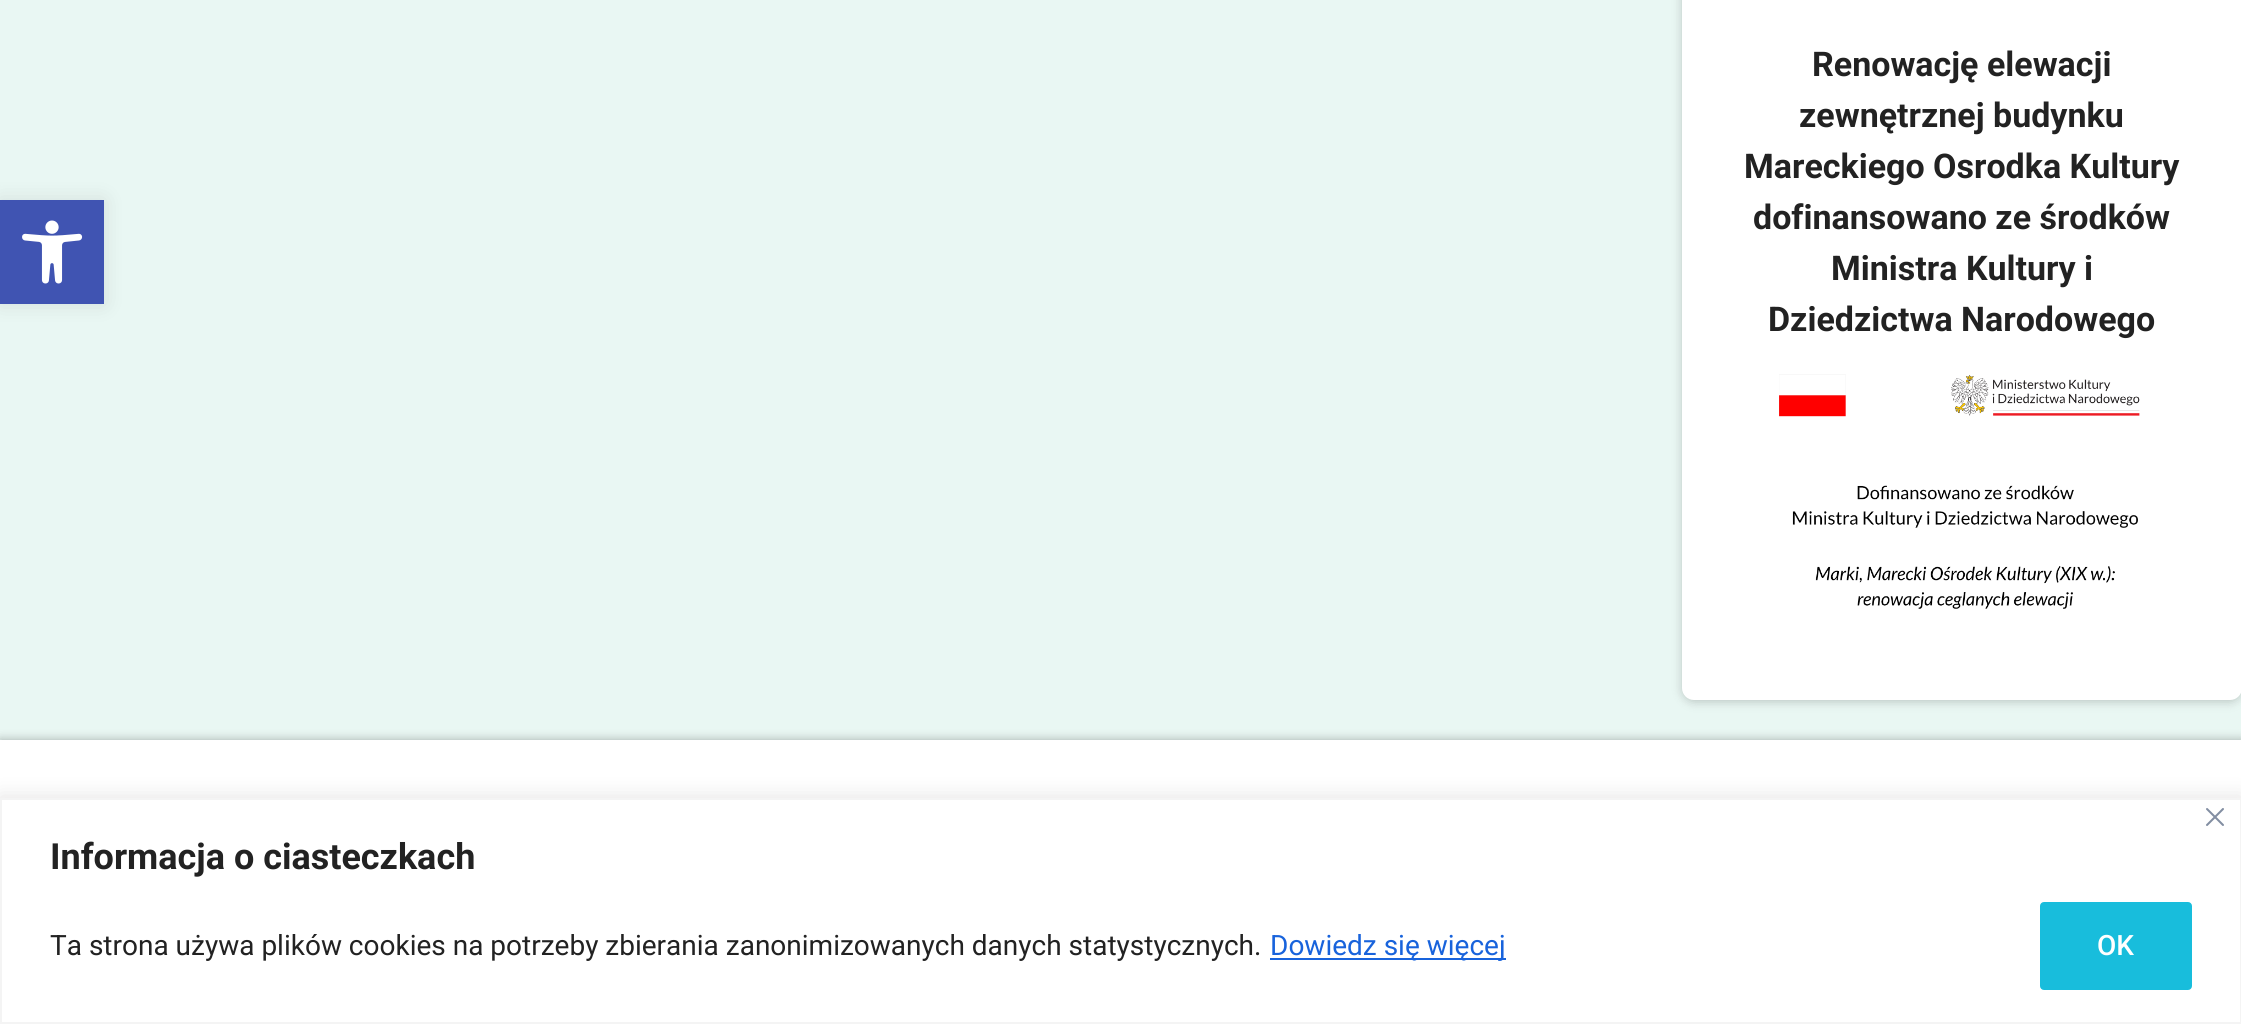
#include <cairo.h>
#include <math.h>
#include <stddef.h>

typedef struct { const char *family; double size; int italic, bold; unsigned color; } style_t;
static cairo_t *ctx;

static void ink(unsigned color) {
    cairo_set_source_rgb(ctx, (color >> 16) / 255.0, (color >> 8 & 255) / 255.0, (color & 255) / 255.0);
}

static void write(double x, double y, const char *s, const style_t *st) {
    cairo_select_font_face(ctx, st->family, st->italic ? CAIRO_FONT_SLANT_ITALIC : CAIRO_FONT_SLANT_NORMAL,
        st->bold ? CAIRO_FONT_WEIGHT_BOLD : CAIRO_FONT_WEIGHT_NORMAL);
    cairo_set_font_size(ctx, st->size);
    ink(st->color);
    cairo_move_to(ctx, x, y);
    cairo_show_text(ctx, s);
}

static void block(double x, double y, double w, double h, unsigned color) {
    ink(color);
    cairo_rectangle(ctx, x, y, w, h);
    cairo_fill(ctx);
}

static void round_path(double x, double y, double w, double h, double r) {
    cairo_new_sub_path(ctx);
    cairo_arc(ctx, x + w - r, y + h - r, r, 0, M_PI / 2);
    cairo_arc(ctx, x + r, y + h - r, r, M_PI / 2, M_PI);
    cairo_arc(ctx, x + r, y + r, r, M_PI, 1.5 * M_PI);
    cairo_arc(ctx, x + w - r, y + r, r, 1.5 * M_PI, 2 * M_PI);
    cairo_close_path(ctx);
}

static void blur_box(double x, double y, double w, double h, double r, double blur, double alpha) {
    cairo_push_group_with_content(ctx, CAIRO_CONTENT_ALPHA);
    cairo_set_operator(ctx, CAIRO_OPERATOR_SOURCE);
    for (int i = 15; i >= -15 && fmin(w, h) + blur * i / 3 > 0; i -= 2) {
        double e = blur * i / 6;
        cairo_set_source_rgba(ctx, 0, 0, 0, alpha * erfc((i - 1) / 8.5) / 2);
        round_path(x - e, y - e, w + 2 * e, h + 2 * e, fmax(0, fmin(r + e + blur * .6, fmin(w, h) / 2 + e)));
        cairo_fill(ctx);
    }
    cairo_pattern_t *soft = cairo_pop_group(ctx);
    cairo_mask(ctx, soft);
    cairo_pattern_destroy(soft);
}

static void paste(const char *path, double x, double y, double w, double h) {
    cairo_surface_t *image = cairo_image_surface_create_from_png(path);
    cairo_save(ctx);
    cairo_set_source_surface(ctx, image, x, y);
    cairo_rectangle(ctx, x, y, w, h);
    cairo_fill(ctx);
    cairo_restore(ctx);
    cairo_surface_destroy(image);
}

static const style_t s1 = {"Roboto", 34, 0, 1, 0x222222};
static const style_t s2 = {"Roboto", 36, 0, 1, 0x222222};
static const style_t s3 = {"Roboto", 28, 0, 0, 0x222222};
static const style_t s4 = {"Roboto", 28, 0, 0, 0x1863dc};
static const style_t s5 = {"Roboto Medium", 28, 0, 0, 0xffffff};

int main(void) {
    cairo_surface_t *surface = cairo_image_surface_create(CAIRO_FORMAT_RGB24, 2241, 1024);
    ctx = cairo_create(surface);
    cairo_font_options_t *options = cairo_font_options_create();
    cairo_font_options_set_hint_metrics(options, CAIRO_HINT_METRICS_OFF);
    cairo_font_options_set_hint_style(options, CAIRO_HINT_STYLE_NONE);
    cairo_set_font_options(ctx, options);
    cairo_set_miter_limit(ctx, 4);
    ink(0xe9f7f3);
    cairo_paint(ctx);
    ink(0x000000);
    blur_box(0, 200, 104, 104, 0, 10, 0.1);
    block(0, 200, 104, 104, 0x4054b2);
    paste("pic1.png", 22, 220, 61, 64);
    ink(0x000000);
    blur_box(1682, -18, 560, 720, 12, 5, 0.2);
    ink(0xffffff);
    round_path(1682, -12, 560, 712, 12);
    cairo_fill(ctx);
    write(1812, 76, "Renowację elewacji", &s1);
    write(1799, 127, "zewnętrznej budynku", &s1);
    write(1744, 178, "Mareckiego Osrodka Kultury", &s1);
    write(1753, 229, "dofinansowano ze środków", &s1);
    write(1831, 280, "Ministra Kultury i", &s1);
    write(1768, 331, "Dziedzictwa Narodowego", &s1);
    paste("pic2.png", 1779, 374, 361, 235);
    ink(0x000000);
    blur_box(0, 740, 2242, 284, 0, 5, 0.3);
    block(0, 740, 2241, 58, 0xffffff);
    ink(0xacabab);
    blur_box(0, 796, 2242, 226, 0, 10, 0.3);
    ink(0xffffff);
    cairo_rectangle(ctx, 1, 799, 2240, 224);
    cairo_fill_preserve(ctx);
    ink(0xf4f4f4);
    cairo_stroke(ctx);
    paste("pic3.png", 2206, 808, 18, 18);
    write(50, 869, "Informacja o ciasteczkach", &s2);
    write(50, 955, "Ta strona używa plików cookies na potrzeby zbierania zanonimizowanych danych statystycznych.", &s3);
    block(1270, 958, 236, 2, 0x1863dc);
    write(1270, 955, "Dowiedz się więcej", &s4);
    ink(0x18bddc);
    round_path(2042, 904, 148, 84, 2);
    cairo_fill_preserve(ctx);
    cairo_set_line_width(ctx, 4);
    cairo_stroke(ctx);
    write(2097, 955, "OK", &s5);
    cairo_surface_write_to_png(surface, "screenshot.png");
    cairo_font_options_destroy(options);
    cairo_destroy(ctx);
    cairo_surface_destroy(surface);
    return 0;
}
